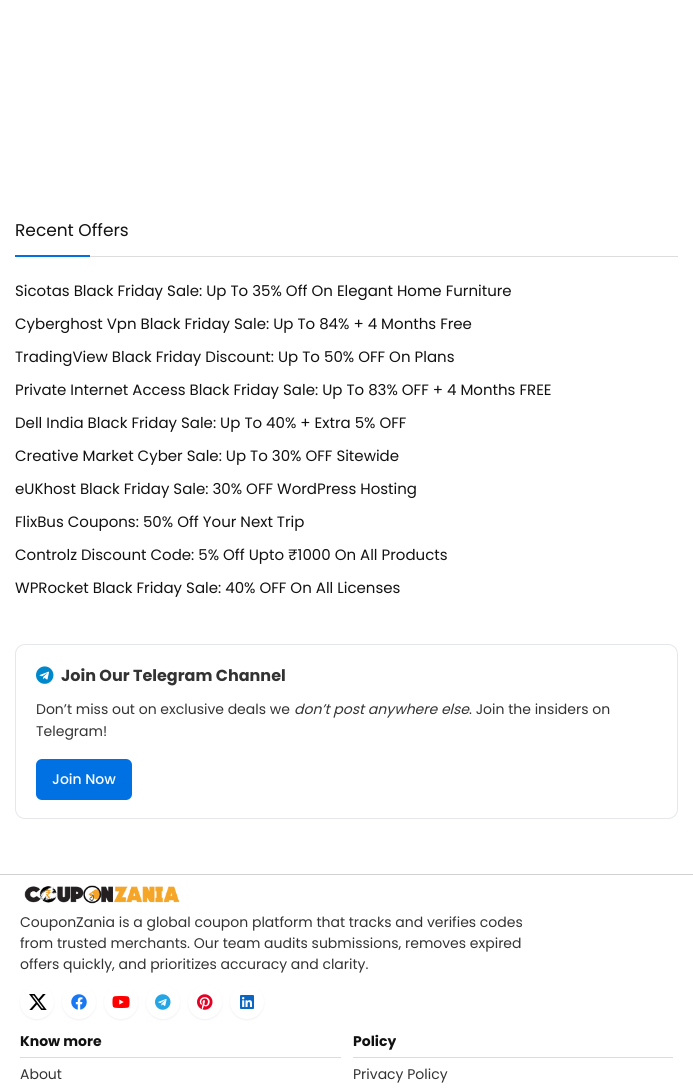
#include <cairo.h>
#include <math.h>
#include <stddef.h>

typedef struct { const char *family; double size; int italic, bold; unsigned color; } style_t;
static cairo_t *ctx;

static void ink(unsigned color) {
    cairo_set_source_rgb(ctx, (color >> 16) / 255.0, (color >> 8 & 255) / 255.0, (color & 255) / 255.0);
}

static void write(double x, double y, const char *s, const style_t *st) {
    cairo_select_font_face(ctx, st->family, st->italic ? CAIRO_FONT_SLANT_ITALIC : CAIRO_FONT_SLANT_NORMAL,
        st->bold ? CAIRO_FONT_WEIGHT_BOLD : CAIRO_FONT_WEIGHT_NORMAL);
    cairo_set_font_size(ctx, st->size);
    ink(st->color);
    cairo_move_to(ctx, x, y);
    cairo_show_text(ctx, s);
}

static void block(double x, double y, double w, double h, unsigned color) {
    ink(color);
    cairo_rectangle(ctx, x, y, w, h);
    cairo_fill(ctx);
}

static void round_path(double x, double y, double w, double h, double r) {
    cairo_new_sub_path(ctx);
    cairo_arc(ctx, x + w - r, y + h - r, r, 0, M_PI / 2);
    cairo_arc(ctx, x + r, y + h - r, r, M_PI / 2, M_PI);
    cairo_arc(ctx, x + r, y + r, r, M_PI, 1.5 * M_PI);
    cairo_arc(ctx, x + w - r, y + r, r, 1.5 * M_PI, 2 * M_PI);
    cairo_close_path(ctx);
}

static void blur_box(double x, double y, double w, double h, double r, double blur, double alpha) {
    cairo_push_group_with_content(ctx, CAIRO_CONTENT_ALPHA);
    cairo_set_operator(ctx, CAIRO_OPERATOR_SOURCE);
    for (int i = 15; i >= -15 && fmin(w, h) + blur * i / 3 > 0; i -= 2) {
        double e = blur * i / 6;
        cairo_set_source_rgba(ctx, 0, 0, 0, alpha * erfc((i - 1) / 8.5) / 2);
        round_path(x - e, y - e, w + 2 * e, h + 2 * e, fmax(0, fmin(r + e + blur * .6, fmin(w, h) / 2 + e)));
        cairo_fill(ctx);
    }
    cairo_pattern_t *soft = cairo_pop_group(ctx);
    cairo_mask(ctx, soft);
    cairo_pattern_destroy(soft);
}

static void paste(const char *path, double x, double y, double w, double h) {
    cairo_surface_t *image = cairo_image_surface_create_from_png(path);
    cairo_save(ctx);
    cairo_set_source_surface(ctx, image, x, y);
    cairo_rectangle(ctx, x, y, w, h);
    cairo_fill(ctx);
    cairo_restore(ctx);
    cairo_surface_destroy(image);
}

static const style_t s1 = {"Poppins", 17, 0, 0, 0x111111};
static const style_t s2 = {"Poppins", 15, 0, 0, 0x111111};
static const style_t s3 = {"Poppins", 16, 0, 1, 0x333333};
static const style_t s4 = {"Poppins", 14, 0, 0, 0x333333};
static const style_t s5 = {"Poppins", 14, 1, 0, 0x333333};
static const style_t s6 = {"Poppins Medium", 14, 0, 0, 0xffffff};
static const style_t s7 = {"Poppins", 14, 0, 1, 0x111111};

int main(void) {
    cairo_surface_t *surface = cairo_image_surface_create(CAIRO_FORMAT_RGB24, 693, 1092);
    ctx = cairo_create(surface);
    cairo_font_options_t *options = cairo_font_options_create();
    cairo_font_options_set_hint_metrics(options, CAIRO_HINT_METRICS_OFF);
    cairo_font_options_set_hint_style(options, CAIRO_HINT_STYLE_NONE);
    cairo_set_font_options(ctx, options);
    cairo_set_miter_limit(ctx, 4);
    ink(0xffffff);
    cairo_paint(ctx);
    block(90, 256, 588, 1, 0xdddddd);
    write(15, 236, "Recent Offers", &s1);
    block(15, 255, 75, 2, 0x0071e3);
    write(15, 296, "Sicotas Black Friday Sale: Up To 35% Off On Elegant Home Furniture", &s2);
    write(15, 329, "Cyberghost Vpn Black Friday Sale: Up To 84% + 4 Months Free", &s2);
    write(15, 362, "TradingView Black Friday Discount: Up To 50% OFF On Plans", &s2);
    write(15, 395, "Private Internet Access Black Friday Sale: Up To 83% OFF + 4 Months FREE", &s2);
    write(15, 428, "Dell India Black Friday Sale: Up To 40% + Extra 5% OFF", &s2);
    write(15, 461, "Creative Market Cyber Sale: Up To 30% OFF Sitewide", &s2);
    write(15, 494, "eUKhost Black Friday Sale: 30% OFF WordPress Hosting", &s2);
    write(15, 527, "FlixBus Coupons: 50% Off Your Next Trip", &s2);
    write(15, 560, "Controlz Discount Code: 5% Off Upto ₹1000 On All Products", &s2);
    write(15, 593, "WPRocket Black Friday Sale: 40% OFF On All Licenses", &s2);
    round_path(15.5, 644.5, 662, 174, 9.5);
    ink(0xe5e7eb);
    cairo_set_line_width(ctx, 1);
    cairo_stroke(ctx);
    paste("pic1.png", 36, 666, 18, 18);
    write(61, 681, "Join Our Telegram Channel", &s3);
    write(36, 714, "Don’t miss out on exclusive deals we", &s4);
    write(294, 714, "don’t post anywhere else", &s5);
    write(469, 714, ". Join the insiders on", &s4);
    write(36, 736, "Telegram!", &s4);
    ink(0x0071e3);
    round_path(36, 759, 96, 41, 6);
    cairo_fill(ctx);
    write(52, 784, "Join Now", &s6);
    block(0, 874, 693, 1, 0xd1d1d1);
    paste("pic2.png", 24, 885, 156, 19);
    write(20, 927, "CouponZania is a global coupon platform that tracks and verifies codes", &s4);
    write(20, 948, "from trusted merchants. Our team audits submissions, removes expired", &s4);
    write(20, 969, "offers quickly, and prioritizes accuracy and clarity.", &s4);
    ink(0x000000);
    blur_box(20, 986, 34, 34, 17, 1, 0.06);
    ink(0xffffff);
    cairo_arc(ctx, 37, 1002, 17, 0, 2 * M_PI);
    cairo_fill(ctx);
    paste("pic3.png", 29, 994, 18, 16);
    ink(0x000000);
    blur_box(62, 986, 34, 34, 17, 1, 0.06);
    ink(0xffffff);
    cairo_arc(ctx, 79, 1002, 17, 0, 2 * M_PI);
    cairo_fill(ctx);
    paste("pic4.png", 71, 994, 16, 16);
    ink(0x000000);
    blur_box(104, 986, 34, 34, 17, 1, 0.06);
    ink(0xffffff);
    cairo_arc(ctx, 121, 1002, 17, 0, 2 * M_PI);
    cairo_fill(ctx);
    paste("pic5.png", 112, 996, 18, 12);
    ink(0x000000);
    blur_box(146, 986, 34, 34, 17, 1, 0.06);
    ink(0xffffff);
    cairo_arc(ctx, 163, 1002, 17, 0, 2 * M_PI);
    cairo_fill(ctx);
    paste("pic6.png", 155, 994, 16, 16);
    ink(0x000000);
    blur_box(188, 986, 34, 34, 17, 1, 0.06);
    ink(0xffffff);
    cairo_arc(ctx, 205, 1002, 17, 0, 2 * M_PI);
    cairo_fill(ctx);
    paste("pic7.png", 197, 994, 16, 16);
    ink(0x000000);
    blur_box(230, 986, 34, 34, 17, 1, 0.06);
    ink(0xffffff);
    cairo_arc(ctx, 247, 1002, 17, 0, 2 * M_PI);
    cairo_fill(ctx);
    paste("pic8.png", 240, 995, 14, 14);
    block(20, 1057, 321, 1, 0xdcdcdc);
    write(20, 1046, "Know more", &s7);
    write(20, 1079, "About", &s4);
    block(353, 1057, 320, 1, 0xdcdcdc);
    write(353, 1046, "Policy", &s7);
    write(353, 1079, "Privacy Policy", &s4);
    cairo_surface_write_to_png(surface, "screenshot.png");
    cairo_font_options_destroy(options);
    cairo_destroy(ctx);
    cairo_surface_destroy(surface);
    return 0;
}
